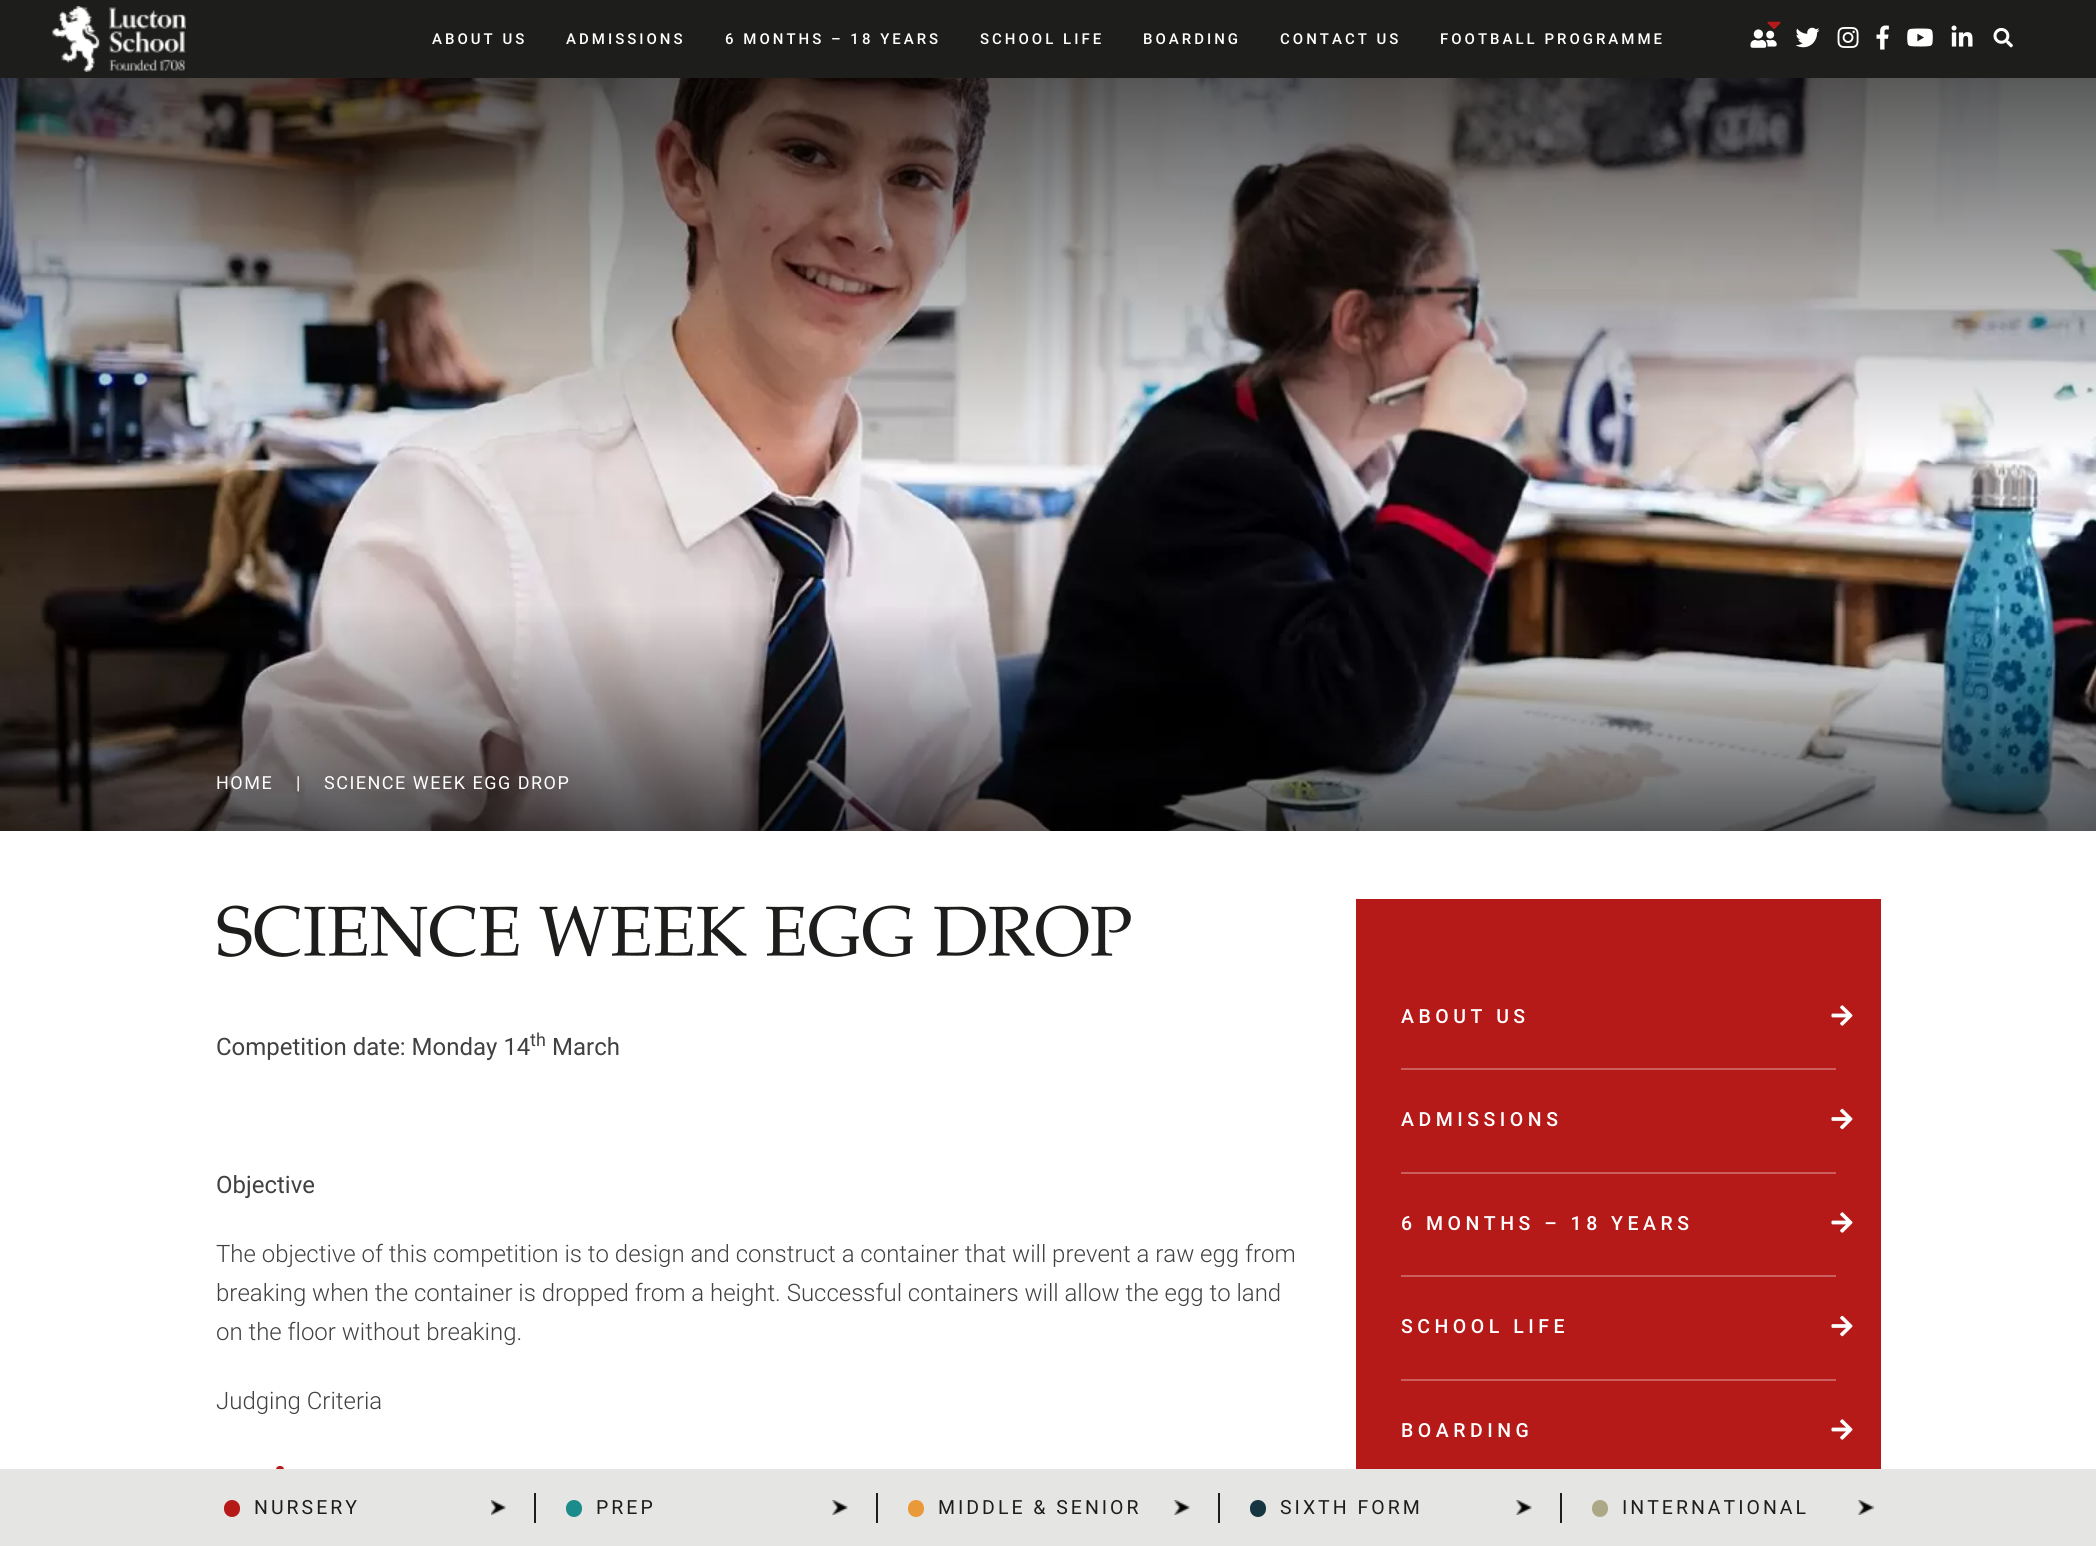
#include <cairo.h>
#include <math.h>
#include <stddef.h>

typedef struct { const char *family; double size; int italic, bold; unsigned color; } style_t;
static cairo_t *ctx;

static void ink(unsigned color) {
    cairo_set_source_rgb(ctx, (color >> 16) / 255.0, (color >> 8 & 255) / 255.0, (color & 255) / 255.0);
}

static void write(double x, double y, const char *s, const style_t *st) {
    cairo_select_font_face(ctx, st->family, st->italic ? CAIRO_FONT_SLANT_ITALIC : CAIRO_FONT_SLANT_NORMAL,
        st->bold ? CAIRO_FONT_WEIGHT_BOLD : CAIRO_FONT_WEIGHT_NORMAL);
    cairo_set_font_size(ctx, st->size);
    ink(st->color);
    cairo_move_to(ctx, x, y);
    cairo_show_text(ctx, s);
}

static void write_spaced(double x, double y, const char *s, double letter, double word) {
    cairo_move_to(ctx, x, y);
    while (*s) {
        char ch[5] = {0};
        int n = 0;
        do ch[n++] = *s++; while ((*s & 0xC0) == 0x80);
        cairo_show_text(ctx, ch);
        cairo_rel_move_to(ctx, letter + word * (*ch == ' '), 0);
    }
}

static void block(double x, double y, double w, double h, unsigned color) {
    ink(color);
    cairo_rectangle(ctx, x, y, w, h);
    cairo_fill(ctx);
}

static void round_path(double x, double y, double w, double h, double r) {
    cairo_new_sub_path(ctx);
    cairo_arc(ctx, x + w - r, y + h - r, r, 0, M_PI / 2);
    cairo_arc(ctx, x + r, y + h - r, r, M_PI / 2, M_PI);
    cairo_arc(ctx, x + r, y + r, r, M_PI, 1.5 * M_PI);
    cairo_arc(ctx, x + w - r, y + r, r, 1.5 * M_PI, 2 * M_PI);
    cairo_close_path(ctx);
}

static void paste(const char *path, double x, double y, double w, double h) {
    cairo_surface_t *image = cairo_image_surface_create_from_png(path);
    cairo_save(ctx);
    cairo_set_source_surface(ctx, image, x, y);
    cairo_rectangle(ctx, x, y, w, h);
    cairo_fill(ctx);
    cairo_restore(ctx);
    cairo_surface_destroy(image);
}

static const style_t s1 = {"Roboto", 24, 0, 0, 0x414042};
static const style_t s2 = {"Roboto", 18, 0, 0, 0x414042};
static const style_t s3 = {"Roboto Light", 24, 0, 0, 0x414042};

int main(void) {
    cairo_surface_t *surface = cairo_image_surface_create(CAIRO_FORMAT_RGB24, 2096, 1546);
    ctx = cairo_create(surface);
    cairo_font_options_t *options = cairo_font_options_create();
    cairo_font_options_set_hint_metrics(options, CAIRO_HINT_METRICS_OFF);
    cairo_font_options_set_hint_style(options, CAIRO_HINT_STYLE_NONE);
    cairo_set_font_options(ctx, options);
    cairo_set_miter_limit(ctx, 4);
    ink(0xffffff);
    cairo_paint(ctx);
    block(0, 0, 2096, 78, 0x1d1d1b);
    paste("pic1.png", 52, 6, 134, 66);
    cairo_select_font_face(ctx, "Roboto Medium", CAIRO_FONT_SLANT_NORMAL, CAIRO_FONT_WEIGHT_NORMAL);
    cairo_set_font_size(ctx, 15);
    ink(0xffffff);
    write_spaced(432, 44, "ABOUT US", 3, 0);
    write_spaced(566, 44, "ADMISSIONS", 3, 0);
    write_spaced(725, 44, "6 MONTHS – 18 YEARS", 3, 0);
    write_spaced(980, 44, "SCHOOL LIFE", 3, 0);
    write_spaced(1143, 44, "BOARDING", 3, 0);
    write_spaced(1280, 44, "CONTACT US", 3, 0);
    write_spaced(1440, 44, "FOOTBALL PROGRAMME", 3, 0);
    paste("pic3.png", 1750, 29, 27, 19);
    paste("pic2.png", 1767, 21, 14, 9);
    paste("pic4.png", 1795, 27, 25, 21);
    paste("pic5.png", 1837, 27, 22, 21);
    paste("pic6.png", 1876, 25, 13, 25);
    paste("pic7.png", 1907, 28, 26, 19);
    paste("pic8.png", 1951, 25, 22, 22);
    paste("pic9.png", 1993, 27, 20, 21);
    paste("pic10.png", 0, 78, 2096, 753);
    cairo_select_font_face(ctx, "Roboto", CAIRO_FONT_SLANT_NORMAL, CAIRO_FONT_WEIGHT_NORMAL);
    cairo_set_font_size(ctx, 18);
    write_spaced(216, 789, "HOME", 1.5, 0);
    write_spaced(296, 789, "|", 1.5, 0);
    write_spaced(324, 789, "SCIENCE WEEK EGG DROP", 1.5, 0);
    paste("pic11.png", 217, 905, 914, 52);
    write(216, 1055, "Competition date: Monday 14", &s1);
    write(530, 1046, "th", &s2);
    write(552, 1055, "March", &s1);
    write(216, 1193, "Objective", &s1);
    write(216, 1262, "The objective of this competition is to design and construct a container that will prevent a raw egg from", &s3);
    write(216, 1301, "breaking when the container is dropped from a height. Successful containers will allow the egg to land", &s3);
    write(216, 1340, "on the floor without breaking.", &s3);
    write(216, 1409, "Judging Criteria", &s3);
    ink(0xb51a19);
    round_path(276, 1466, 8, 7, 3.5);
    cairo_fill(ctx);
    block(1356, 899, 525, 570, 0xb51a19);
    block(1401, 1068, 435, 2, 0xcb5f5e);
    cairo_select_font_face(ctx, "Roboto Medium", CAIRO_FONT_SLANT_NORMAL, CAIRO_FONT_WEIGHT_NORMAL);
    cairo_set_font_size(ctx, 19.5);
    ink(0xffffff);
    write_spaced(1401, 1023, "ABOUT US", 4.5, 0);
    paste("pic12.png", 1831, 1005, 22, 21);
    block(1401, 1172, 435, 2, 0xcb5f5e);
    ink(0xffffff);
    write_spaced(1401, 1126, "ADMISSIONS", 4.5, 0);
    paste("pic13.png", 1831, 1108, 22, 22);
    block(1401, 1275, 435, 2, 0xcb5f5e);
    ink(0xffffff);
    write_spaced(1401, 1230, "6 MONTHS – 18 YEARS", 4.5, 0);
    paste("pic12.png", 1831, 1212, 22, 21);
    block(1401, 1379, 435, 2, 0xcb5f5e);
    ink(0xffffff);
    write_spaced(1401, 1333, "SCHOOL LIFE", 4.5, 0);
    paste("pic13.png", 1831, 1315, 22, 22);
    write_spaced(1401, 1437, "BOARDING", 4.5, 0);
    paste("pic12.png", 1831, 1419, 22, 21);
    block(0, 1469, 2096, 77, 0xe5e5e4);
    ink(0xb51a19);
    round_path(224, 1500, 16, 17, 8);
    cairo_fill(ctx);
    cairo_select_font_face(ctx, "Roboto", CAIRO_FONT_SLANT_NORMAL, CAIRO_FONT_WEIGHT_NORMAL);
    ink(0x1d1d1b);
    write_spaced(254, 1514, "NURSERY", 3, 0);
    paste("pic14.png", 491, 1500, 15, 15);
    block(534, 1493, 2, 30, 0x1d1d1b);
    ink(0x1c8b8c);
    round_path(566, 1500, 16, 17, 8);
    cairo_fill(ctx);
    ink(0x1d1d1b);
    write_spaced(596, 1514, "PREP", 3, 0);
    paste("pic15.png", 832, 1500, 16, 15);
    block(876, 1493, 2, 30, 0x1d1d1b);
    ink(0xea9938);
    round_path(908, 1500, 16, 17, 8);
    cairo_fill(ctx);
    ink(0x1d1d1b);
    write_spaced(938, 1514, "MIDDLE & SENIOR", 3, 0);
    paste("pic15.png", 1174, 1500, 16, 15);
    block(1218, 1493, 2, 30, 0x1d1d1b);
    ink(0x153641);
    round_path(1250, 1500, 16, 17, 8);
    cairo_fill(ctx);
    ink(0x1d1d1b);
    write_spaced(1280, 1514, "SIXTH FORM", 3, 0);
    paste("pic15.png", 1516, 1500, 16, 15);
    block(1560, 1493, 2, 30, 0x1d1d1b);
    ink(0xaca787);
    round_path(1592, 1500, 16, 17, 8);
    cairo_fill(ctx);
    ink(0x1d1d1b);
    write_spaced(1622, 1514, "INTERNATIONAL", 3, 0);
    paste("pic16.png", 1858, 1500, 16, 15);
    cairo_surface_write_to_png(surface, "screenshot.png");
    cairo_font_options_destroy(options);
    cairo_destroy(ctx);
    cairo_surface_destroy(surface);
    return 0;
}
